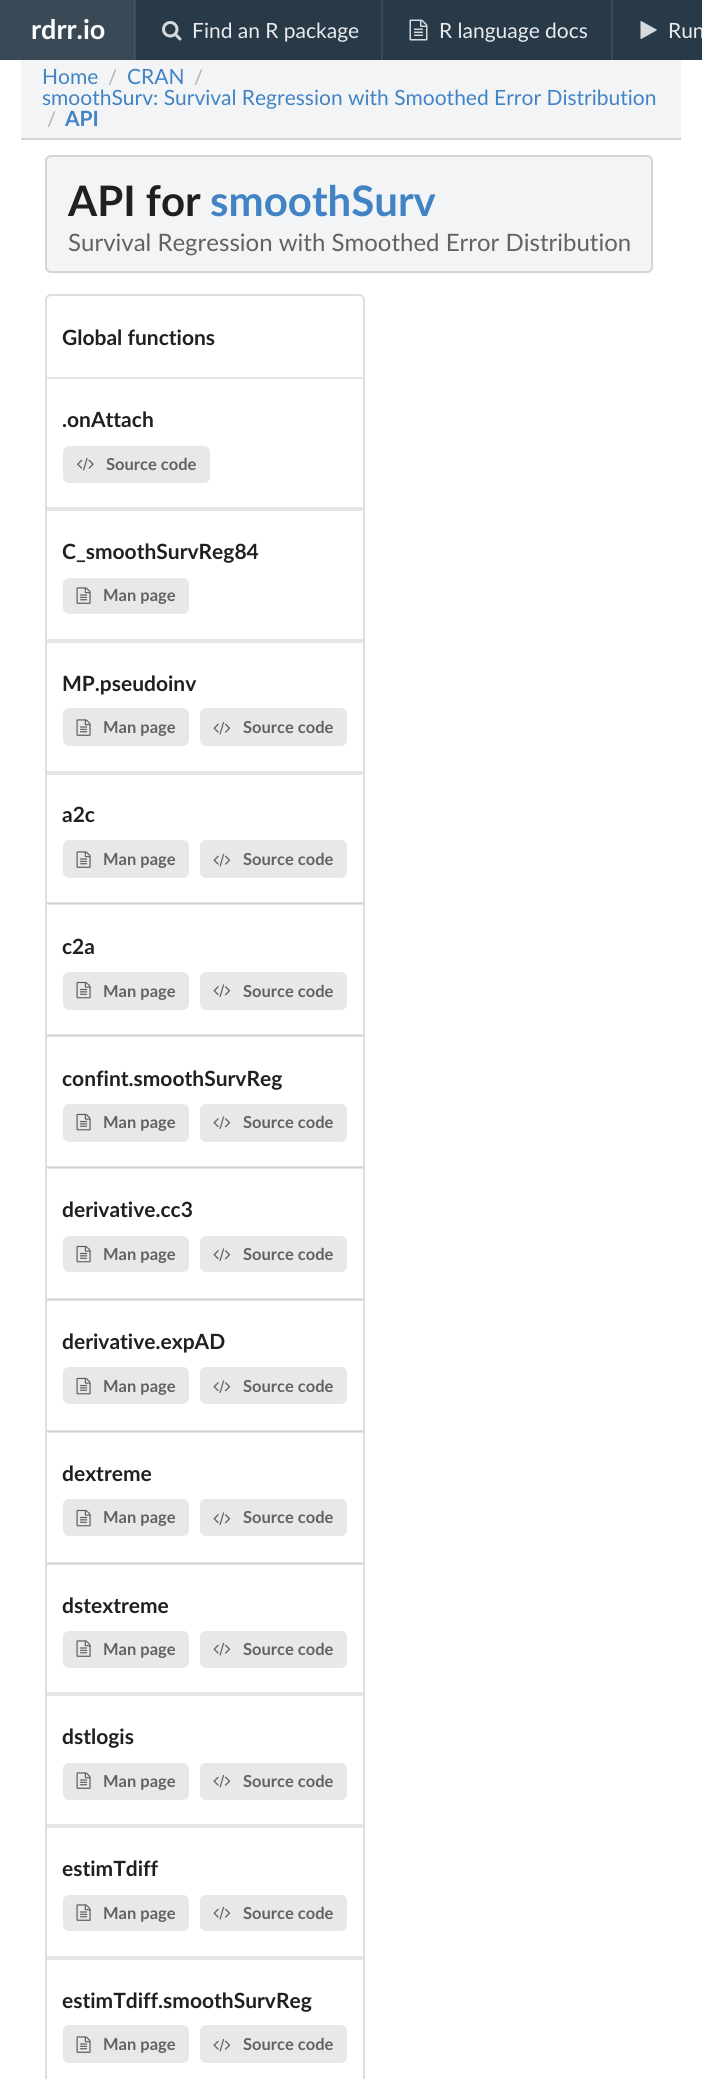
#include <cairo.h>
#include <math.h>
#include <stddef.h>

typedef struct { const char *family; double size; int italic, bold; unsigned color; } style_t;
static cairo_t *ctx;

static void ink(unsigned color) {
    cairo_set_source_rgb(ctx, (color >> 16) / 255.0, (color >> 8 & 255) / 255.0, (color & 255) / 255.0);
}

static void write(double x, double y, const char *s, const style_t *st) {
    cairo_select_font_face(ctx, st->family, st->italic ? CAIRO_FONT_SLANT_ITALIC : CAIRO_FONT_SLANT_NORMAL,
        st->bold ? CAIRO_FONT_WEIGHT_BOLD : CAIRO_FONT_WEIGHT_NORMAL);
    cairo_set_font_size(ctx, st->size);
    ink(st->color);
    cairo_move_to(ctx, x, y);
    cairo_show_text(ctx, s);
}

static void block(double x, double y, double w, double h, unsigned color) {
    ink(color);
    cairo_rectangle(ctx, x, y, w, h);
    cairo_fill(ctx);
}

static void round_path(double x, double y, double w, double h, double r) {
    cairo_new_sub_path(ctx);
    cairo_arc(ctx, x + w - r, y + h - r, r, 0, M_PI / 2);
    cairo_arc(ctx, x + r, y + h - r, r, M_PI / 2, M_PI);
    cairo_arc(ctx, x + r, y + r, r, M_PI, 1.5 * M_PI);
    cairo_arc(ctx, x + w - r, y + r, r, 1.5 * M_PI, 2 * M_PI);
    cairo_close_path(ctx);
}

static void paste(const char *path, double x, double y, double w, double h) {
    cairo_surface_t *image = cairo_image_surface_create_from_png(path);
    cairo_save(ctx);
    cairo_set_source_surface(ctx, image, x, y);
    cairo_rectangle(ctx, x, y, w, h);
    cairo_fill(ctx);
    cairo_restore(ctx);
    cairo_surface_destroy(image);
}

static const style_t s1 = {"Lato", 27, 0, 1, 0xffffff};
static const style_t s2 = {"Lato", 21, 0, 0, 0xeaebed};
static const style_t s3 = {"Lato", 21, 0, 0, 0x4183c4};
static const style_t s4 = {"Lato", 20, 0, 0, 0xafb0b1};
static const style_t s5 = {"Lato", 21, 0, 1, 0x4183c4};
static const style_t s6 = {"Lato", 42, 0, 1, 0x202020};
static const style_t s7 = {"Lato", 42, 0, 1, 0x4183c4};
static const style_t s8 = {"Lato", 24, 0, 0, 0x616262};
static const style_t s9 = {"Lato", 21, 0, 1, 0x202020};
static const style_t s10 = {"Lato", 16.5, 0, 1, 0x616262};

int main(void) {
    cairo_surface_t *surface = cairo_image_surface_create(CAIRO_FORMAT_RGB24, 702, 2079);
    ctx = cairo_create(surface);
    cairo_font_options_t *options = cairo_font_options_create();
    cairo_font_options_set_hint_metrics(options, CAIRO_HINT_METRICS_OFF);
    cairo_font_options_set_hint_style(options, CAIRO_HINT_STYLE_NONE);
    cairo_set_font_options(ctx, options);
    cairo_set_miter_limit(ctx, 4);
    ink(0xffffff);
    cairo_paint(ctx);
    block(47, 1564, 316, 1, 0xe6e6e6);
    block(47, 1432, 316, 1, 0xe6e6e6);
    block(47, 1300, 316, 1, 0xe6e6e6);
    block(47, 1168, 316, 1, 0xe6e6e6);
    block(47, 1036, 316, 1, 0xe6e6e6);
    block(47, 904, 316, 1, 0xe6e6e6);
    block(136, 0, 566, 60, 0x283947);
    block(135, 0, 1, 60, 0x394956);
    block(0, 0, 134, 60, 0x394956);
    block(134, 0, 1, 60, 0x495864);
    write(31, 39, "rdrr.io", &s1);
    paste("pic1.png", 162, 21, 20, 20);
    write(192, 38, "Find an R package", &s2);
    block(381, 0, 2, 60, 0x394956);
    paste("pic2.png", 409, 19, 19, 22);
    write(439, 38, "R language docs", &s2);
    block(611, 0, 2, 60, 0x394956);
    paste("pic3.png", 640, 21, 17, 18);
    write(668, 38, "Run", &s2);
    block(21, 60, 660, 78, 0xf3f4f5);
    block(21, 138, 660, 2, 0xd4d4d5);
    write(42, 84, "Home", &s3);
    write(108, 84, "/", &s4);
    write(127, 84, "CRAN", &s3);
    write(194, 84, "/", &s4);
    write(42, 105, "smoothSurv: Survival Regression with Smoothed Error Distribution", &s3);
    write(47, 126, "/", &s4);
    write(65, 126, "API", &s5);
    ink(0xf3f4f5);
    round_path(46, 156, 606, 116, 5);
    cairo_fill_preserve(ctx);
    ink(0xd4d4d5);
    cairo_stroke(ctx);
    write(68, 216, "API for", &s6);
    write(210, 216, "smoothSurv", &s7);
    write(68, 251, "Survival Regression with Smoothed Error Distribution", &s8);
    round_path(46, 295, 318, 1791, 5);
    ink(0xdedede);
    cairo_stroke(ctx);
    block(47, 377, 316, 2, 0xe6e6e6);
    write(62, 345, "Global functions", &s9);
    block(47, 507, 316, 4, 0xe6e6e6);
    write(62, 427, ".onAttach", &s9);
    ink(0xe8e8e8);
    round_path(63, 446, 147, 37, 6);
    cairo_fill(ctx);
    paste("pic4.png", 77, 458, 17, 13);
    write(106, 470, "Source code", &s10);
    block(47, 639, 316, 4, 0xe6e6e6);
    write(62, 559, "C_smoothSurvReg84", &s9);
    ink(0xe8e8e8);
    round_path(63, 578, 126, 36, 6);
    cairo_fill(ctx);
    paste("pic5.png", 76, 587, 15, 17);
    write(103, 601, "Man page", &s10);
    block(47, 771, 316, 4, 0xe6e6e6);
    write(62, 691, "MP.pseudoinv", &s9);
    ink(0xe8e8e8);
    round_path(63, 708, 126, 38, 6);
    cairo_fill(ctx);
    paste("pic5.png", 76, 719, 15, 17);
    write(103, 733, "Man page", &s10);
    ink(0xe8e8e8);
    round_path(200, 708, 147, 38, 6);
    cairo_fill(ctx);
    paste("pic6.png", 213, 721, 18, 14);
    write(243, 733, "Source code", &s10);
    block(47, 902, 316, 1, 0xe6e6e6);
    block(47, 903, 316, 1, 0xcfcfcf);
    write(62, 822, "a2c", &s9);
    ink(0xe8e8e8);
    round_path(63, 840, 126, 38, 6);
    cairo_fill(ctx);
    paste("pic5.png", 76, 851, 15, 17);
    write(103, 865, "Man page", &s10);
    ink(0xe8e8e8);
    round_path(200, 840, 147, 38, 6);
    cairo_fill(ctx);
    paste("pic6.png", 213, 853, 18, 14);
    write(243, 865, "Source code", &s10);
    block(47, 1034, 316, 1, 0xe6e6e6);
    block(47, 1035, 316, 1, 0xcfcfcf);
    write(62, 954, "c2a", &s9);
    ink(0xe8e8e8);
    round_path(63, 972, 126, 38, 6);
    cairo_fill(ctx);
    paste("pic7.png", 76, 981, 15, 18);
    write(103, 997, "Man page", &s10);
    ink(0xe8e8e8);
    round_path(200, 972, 147, 38, 6);
    cairo_fill(ctx);
    paste("pic8.png", 213, 984, 18, 13);
    write(243, 997, "Source code", &s10);
    block(47, 1166, 316, 1, 0xe6e6e6);
    block(47, 1167, 316, 1, 0xcfcfcf);
    write(62, 1086, "confint.smoothSurvReg", &s9);
    ink(0xe8e8e8);
    round_path(63, 1104, 126, 38, 6);
    cairo_fill(ctx);
    paste("pic7.png", 76, 1113, 15, 18);
    write(103, 1128, "Man page", &s10);
    ink(0xe8e8e8);
    round_path(200, 1104, 147, 38, 6);
    cairo_fill(ctx);
    paste("pic8.png", 213, 1116, 18, 13);
    write(243, 1128, "Source code", &s10);
    block(47, 1298, 316, 1, 0xe6e6e6);
    block(47, 1299, 316, 1, 0xcfcfcf);
    write(62, 1217, "derivative.cc3", &s9);
    ink(0xe8e8e8);
    round_path(63, 1236, 126, 36, 6);
    cairo_fill(ctx);
    paste("pic7.png", 76, 1245, 15, 18);
    write(103, 1260, "Man page", &s10);
    ink(0xe8e8e8);
    round_path(200, 1236, 147, 36, 6);
    cairo_fill(ctx);
    paste("pic8.png", 213, 1248, 18, 13);
    write(243, 1260, "Source code", &s10);
    block(47, 1430, 316, 1, 0xe6e6e6);
    block(47, 1431, 316, 1, 0xcfcfcf);
    write(62, 1349, "derivative.expAD", &s9);
    ink(0xe8e8e8);
    round_path(63, 1367, 126, 37, 6);
    cairo_fill(ctx);
    paste("pic7.png", 76, 1377, 15, 18);
    write(103, 1392, "Man page", &s10);
    ink(0xe8e8e8);
    round_path(200, 1367, 147, 37, 6);
    cairo_fill(ctx);
    paste("pic8.png", 213, 1380, 18, 13);
    write(243, 1392, "Source code", &s10);
    block(47, 1562, 316, 1, 0xe6e6e6);
    block(47, 1563, 316, 1, 0xcfcfcf);
    write(62, 1481, "dextreme", &s9);
    ink(0xe8e8e8);
    round_path(63, 1499, 126, 37, 6);
    cairo_fill(ctx);
    paste("pic7.png", 76, 1509, 15, 18);
    write(103, 1523, "Man page", &s10);
    ink(0xe8e8e8);
    round_path(200, 1499, 147, 37, 6);
    cairo_fill(ctx);
    paste("pic8.png", 213, 1512, 18, 13);
    write(243, 1523, "Source code", &s10);
    block(47, 1692, 316, 4, 0xe6e6e6);
    write(62, 1613, "dstextreme", &s9);
    ink(0xe8e8e8);
    round_path(63, 1631, 126, 37, 6);
    cairo_fill(ctx);
    paste("pic5.png", 76, 1640, 15, 17);
    write(103, 1655, "Man page", &s10);
    ink(0xe8e8e8);
    round_path(200, 1631, 147, 37, 6);
    cairo_fill(ctx);
    paste("pic6.png", 213, 1642, 18, 14);
    write(243, 1655, "Source code", &s10);
    block(47, 1824, 316, 4, 0xe6e6e6);
    write(62, 1744, "dstlogis", &s9);
    ink(0xe8e8e8);
    round_path(63, 1763, 126, 37, 6);
    cairo_fill(ctx);
    paste("pic5.png", 76, 1772, 15, 17);
    write(103, 1787, "Man page", &s10);
    ink(0xe8e8e8);
    round_path(200, 1763, 147, 37, 6);
    cairo_fill(ctx);
    paste("pic6.png", 213, 1774, 18, 14);
    write(243, 1787, "Source code", &s10);
    block(47, 1956, 316, 4, 0xe6e6e6);
    write(62, 1876, "estimTdiff", &s9);
    ink(0xe8e8e8);
    round_path(63, 1895, 126, 36, 6);
    cairo_fill(ctx);
    paste("pic5.png", 76, 1904, 15, 17);
    write(103, 1919, "Man page", &s10);
    ink(0xe8e8e8);
    round_path(200, 1895, 147, 36, 6);
    cairo_fill(ctx);
    paste("pic6.png", 213, 1906, 18, 14);
    write(243, 1919, "Source code", &s10);
    write(62, 2008, "estimTdiff.smoothSurvReg", &s9);
    ink(0xe8e8e8);
    round_path(63, 2025, 126, 38, 6);
    cairo_fill(ctx);
    paste("pic5.png", 76, 2036, 15, 17);
    write(103, 2050, "Man page", &s10);
    ink(0xe8e8e8);
    round_path(200, 2025, 147, 38, 6);
    cairo_fill(ctx);
    paste("pic6.png", 213, 2038, 18, 14);
    write(243, 2050, "Source code", &s10);
    cairo_surface_write_to_png(surface, "screenshot.png");
    cairo_font_options_destroy(options);
    cairo_destroy(ctx);
    cairo_surface_destroy(surface);
    return 0;
}
